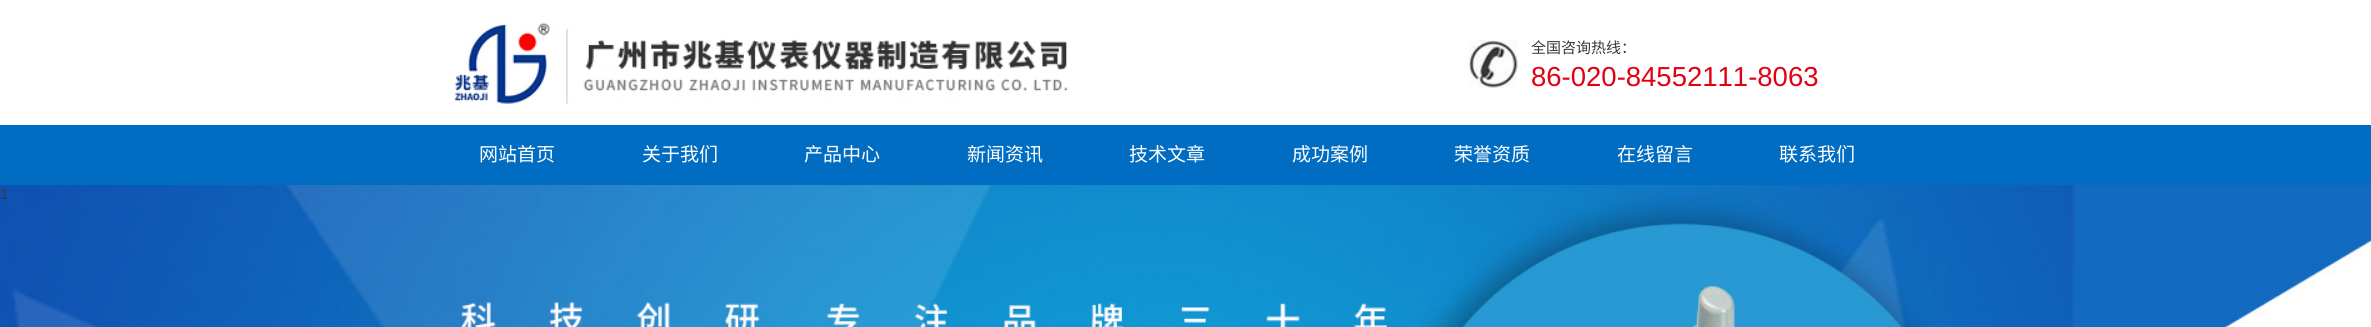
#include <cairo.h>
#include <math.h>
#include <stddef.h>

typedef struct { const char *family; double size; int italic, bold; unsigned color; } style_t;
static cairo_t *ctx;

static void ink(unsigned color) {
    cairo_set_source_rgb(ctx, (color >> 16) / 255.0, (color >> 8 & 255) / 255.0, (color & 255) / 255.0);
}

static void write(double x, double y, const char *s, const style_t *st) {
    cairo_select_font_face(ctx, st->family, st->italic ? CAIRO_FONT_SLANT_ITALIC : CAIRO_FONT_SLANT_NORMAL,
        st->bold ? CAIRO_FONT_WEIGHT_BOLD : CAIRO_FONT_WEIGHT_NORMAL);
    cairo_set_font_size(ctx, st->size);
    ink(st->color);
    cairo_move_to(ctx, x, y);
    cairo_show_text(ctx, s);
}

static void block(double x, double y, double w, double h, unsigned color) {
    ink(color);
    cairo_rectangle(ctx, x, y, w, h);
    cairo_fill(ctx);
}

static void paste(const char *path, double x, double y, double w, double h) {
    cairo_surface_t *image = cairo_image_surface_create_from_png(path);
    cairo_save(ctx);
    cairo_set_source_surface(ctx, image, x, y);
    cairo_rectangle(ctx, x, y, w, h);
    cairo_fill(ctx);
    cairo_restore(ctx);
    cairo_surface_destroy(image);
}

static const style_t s1 = {"Noto Sans CJK SC", 15, 0, 0, 0x3a3a3a};
static const style_t s2 = {"Liberation Sans", 27.5, 0, 0, 0xe20013};
static const style_t s3 = {"Noto Sans CJK SC", 19, 0, 0, 0xffffff};
static const style_t s4 = {"Liberation Sans", 15, 0, 0, 0x3a3a3a};

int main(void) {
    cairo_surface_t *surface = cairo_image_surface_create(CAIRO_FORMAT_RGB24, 2371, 327);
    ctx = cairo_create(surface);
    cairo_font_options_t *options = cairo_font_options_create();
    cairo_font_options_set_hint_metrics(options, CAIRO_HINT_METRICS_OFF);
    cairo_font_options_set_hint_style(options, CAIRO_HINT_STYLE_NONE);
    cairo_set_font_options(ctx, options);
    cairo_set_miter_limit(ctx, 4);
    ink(0xffffff);
    cairo_paint(ctx);
    paste("pic1.png", 454, 22, 614, 84);
    paste("pic2.png", 1468, 40, 50, 48);
    write(1531, 53, "全国咨询热线：", &s1);
    write(1531, 86, "86-020-84552111-8063", &s2);
    block(0, 125, 2371, 60, 0x006dc2);
    write(479, 161, "网站首页", &s3);
    write(642, 161, "关于我们", &s3);
    write(804, 161, "产品中心", &s3);
    write(967, 161, "新闻资讯", &s3);
    write(1129, 161, "技术文章", &s3);
    write(1292, 161, "成功案例", &s3);
    write(1454, 161, "荣誉资质", &s3);
    write(1617, 161, "在线留言", &s3);
    write(1779, 161, "联系我们", &s3);
    paste("pic3.png", 0, 185, 2371, 142);
    write(0, 199, "1", &s4);
    cairo_surface_write_to_png(surface, "screenshot.png");
    cairo_font_options_destroy(options);
    cairo_destroy(ctx);
    cairo_surface_destroy(surface);
    return 0;
}
